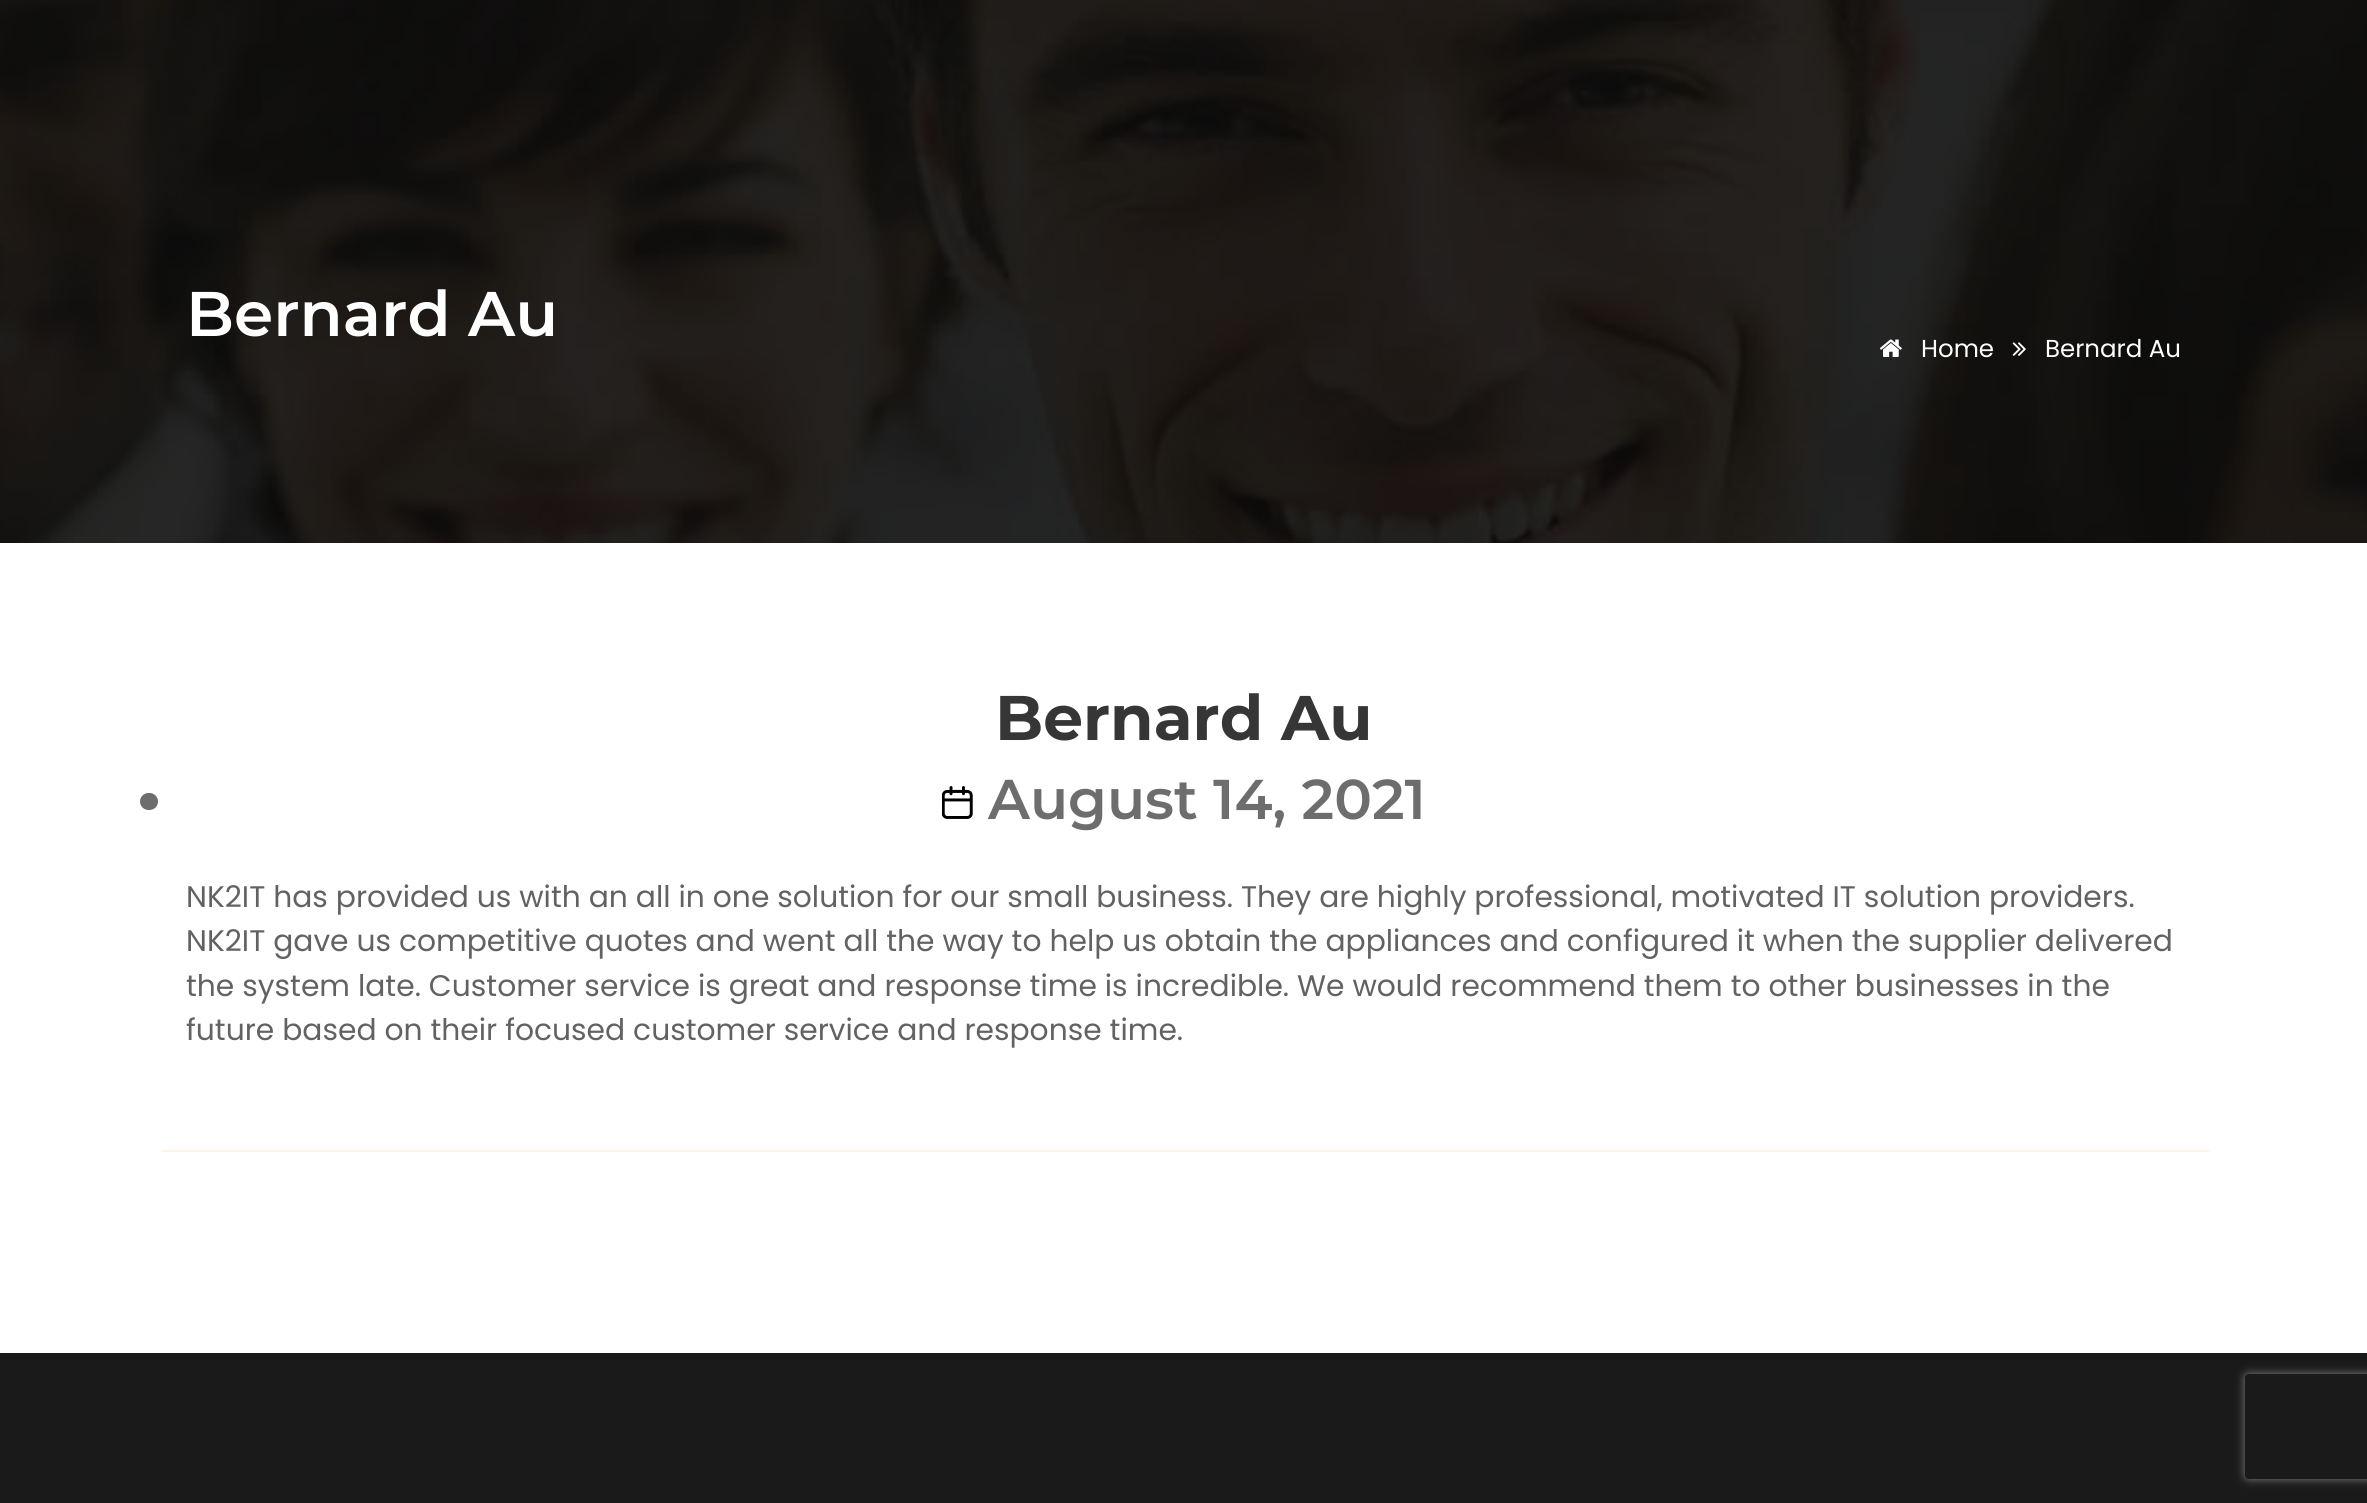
#include <cairo.h>
#include <math.h>
#include <stddef.h>

typedef struct { const char *family; double size; int italic, bold; unsigned color; } style_t;
static cairo_t *ctx;

static void ink(unsigned color) {
    cairo_set_source_rgb(ctx, (color >> 16) / 255.0, (color >> 8 & 255) / 255.0, (color & 255) / 255.0);
}

static void write(double x, double y, const char *s, const style_t *st) {
    cairo_select_font_face(ctx, st->family, st->italic ? CAIRO_FONT_SLANT_ITALIC : CAIRO_FONT_SLANT_NORMAL,
        st->bold ? CAIRO_FONT_WEIGHT_BOLD : CAIRO_FONT_WEIGHT_NORMAL);
    cairo_set_font_size(ctx, st->size);
    ink(st->color);
    cairo_move_to(ctx, x, y);
    cairo_show_text(ctx, s);
}

static void block(double x, double y, double w, double h, unsigned color) {
    ink(color);
    cairo_rectangle(ctx, x, y, w, h);
    cairo_fill(ctx);
}

static void round_path(double x, double y, double w, double h, double r) {
    cairo_new_sub_path(ctx);
    cairo_arc(ctx, x + w - r, y + h - r, r, 0, M_PI / 2);
    cairo_arc(ctx, x + r, y + h - r, r, M_PI / 2, M_PI);
    cairo_arc(ctx, x + r, y + r, r, M_PI, 1.5 * M_PI);
    cairo_arc(ctx, x + w - r, y + r, r, 1.5 * M_PI, 2 * M_PI);
    cairo_close_path(ctx);
}

static void blur_box(double x, double y, double w, double h, double r, double blur, double alpha) {
    cairo_push_group_with_content(ctx, CAIRO_CONTENT_ALPHA);
    cairo_set_operator(ctx, CAIRO_OPERATOR_SOURCE);
    for (int i = 15; i >= -15 && fmin(w, h) + blur * i / 3 > 0; i -= 2) {
        double e = blur * i / 6;
        cairo_set_source_rgba(ctx, 0, 0, 0, alpha * erfc((i - 1) / 8.5) / 2);
        round_path(x - e, y - e, w + 2 * e, h + 2 * e, fmax(0, fmin(r + e + blur * .6, fmin(w, h) / 2 + e)));
        cairo_fill(ctx);
    }
    cairo_pattern_t *soft = cairo_pop_group(ctx);
    cairo_mask(ctx, soft);
    cairo_pattern_destroy(soft);
}

static void paste(const char *path, double x, double y, double w, double h) {
    cairo_surface_t *image = cairo_image_surface_create_from_png(path);
    cairo_save(ctx);
    cairo_set_source_surface(ctx, image, x, y);
    cairo_rectangle(ctx, x, y, w, h);
    cairo_fill(ctx);
    cairo_restore(ctx);
    cairo_surface_destroy(image);
}

static const style_t s1 = {"Montserrat SemiBold", 63, 0, 0, 0xffffff};
static const style_t s2 = {"Poppins", 24.5, 0, 0, 0xffffff};
static const style_t s3 = {"Montserrat", 63, 0, 1, 0x363636};
static const style_t s4 = {"Montserrat SemiBold", 56, 0, 0, 0x6d6d6d};
static const style_t s5 = {"Poppins", 29.75, 0, 0, 0x626262};

int main(void) {
    cairo_surface_t *surface = cairo_image_surface_create(CAIRO_FORMAT_RGB24, 2367, 1503);
    ctx = cairo_create(surface);
    cairo_font_options_t *options = cairo_font_options_create();
    cairo_font_options_set_hint_metrics(options, CAIRO_HINT_METRICS_OFF);
    cairo_font_options_set_hint_style(options, CAIRO_HINT_STYLE_NONE);
    cairo_set_font_options(ctx, options);
    cairo_set_miter_limit(ctx, 4);
    ink(0xffffff);
    cairo_paint(ctx);
    paste("pic1.png", 0, 0, 2367, 543);
    write(186, 336, "Bernard Au", &s1);
    paste("pic2.png", 1879, 339, 23, 18);
    write(1921, 357, "Home", &s2);
    paste("pic3.png", 2012, 342, 14, 14);
    write(2045, 357, "Bernard Au", &s2);
    write(995, 740, "Bernard Au", &s3);
    ink(0x6d6d6d);
    round_path(140, 793, 18, 17, 8.5);
    cairo_fill(ctx);
    paste("pic4.png", 942, 786, 31, 33);
    write(988, 819, "August 14, 2021", &s4);
    write(186, 907, "NK2IT has provided us with an all in one solution for our small business. They are highly professional, motivated IT solution providers.", &s5);
    write(186, 951, "NK2IT gave us competitive quotes and went all the way to help us obtain the appliances and configured it when the supplier delivered", &s5);
    write(186, 996, "the system late. Customer service is great and response time is incredible. We would recommend them to other businesses in the", &s5);
    write(186, 1040, "future based on their focused customer service and response time.", &s5);
    block(161, 1150, 2048, 2, 0xfff3e4);
    block(0, 1353, 2367, 150, 0x1a1a1a);
    cairo_save(ctx);
    cairo_set_fill_rule(ctx, CAIRO_FILL_RULE_EVEN_ODD);
    cairo_new_path(ctx);
    cairo_move_to(ctx, 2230, 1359);
    cairo_line_to(ctx, 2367, 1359);
    cairo_line_to(ctx, 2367, 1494);
    cairo_line_to(ctx, 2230, 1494);
    cairo_close_path(ctx);
    cairo_move_to(ctx, 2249, 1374);
    cairo_line_to(ctx, 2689, 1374);
    cairo_curve_to(ctx, 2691, 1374, 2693, 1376, 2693, 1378);
    cairo_line_to(ctx, 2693, 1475);
    cairo_curve_to(ctx, 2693, 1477, 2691, 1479, 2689, 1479);
    cairo_line_to(ctx, 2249, 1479);
    cairo_curve_to(ctx, 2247, 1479, 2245, 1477, 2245, 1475);
    cairo_line_to(ctx, 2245, 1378);
    cairo_curve_to(ctx, 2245, 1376, 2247, 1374, 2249, 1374);
    cairo_close_path(ctx);
    cairo_clip(ctx);
    ink(0x808080);
    blur_box(2245, 1374, 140, 105, 4, 4.5, 1);
    cairo_restore(ctx);
    cairo_surface_write_to_png(surface, "screenshot.png");
    cairo_font_options_destroy(options);
    cairo_destroy(ctx);
    cairo_surface_destroy(surface);
    return 0;
}
